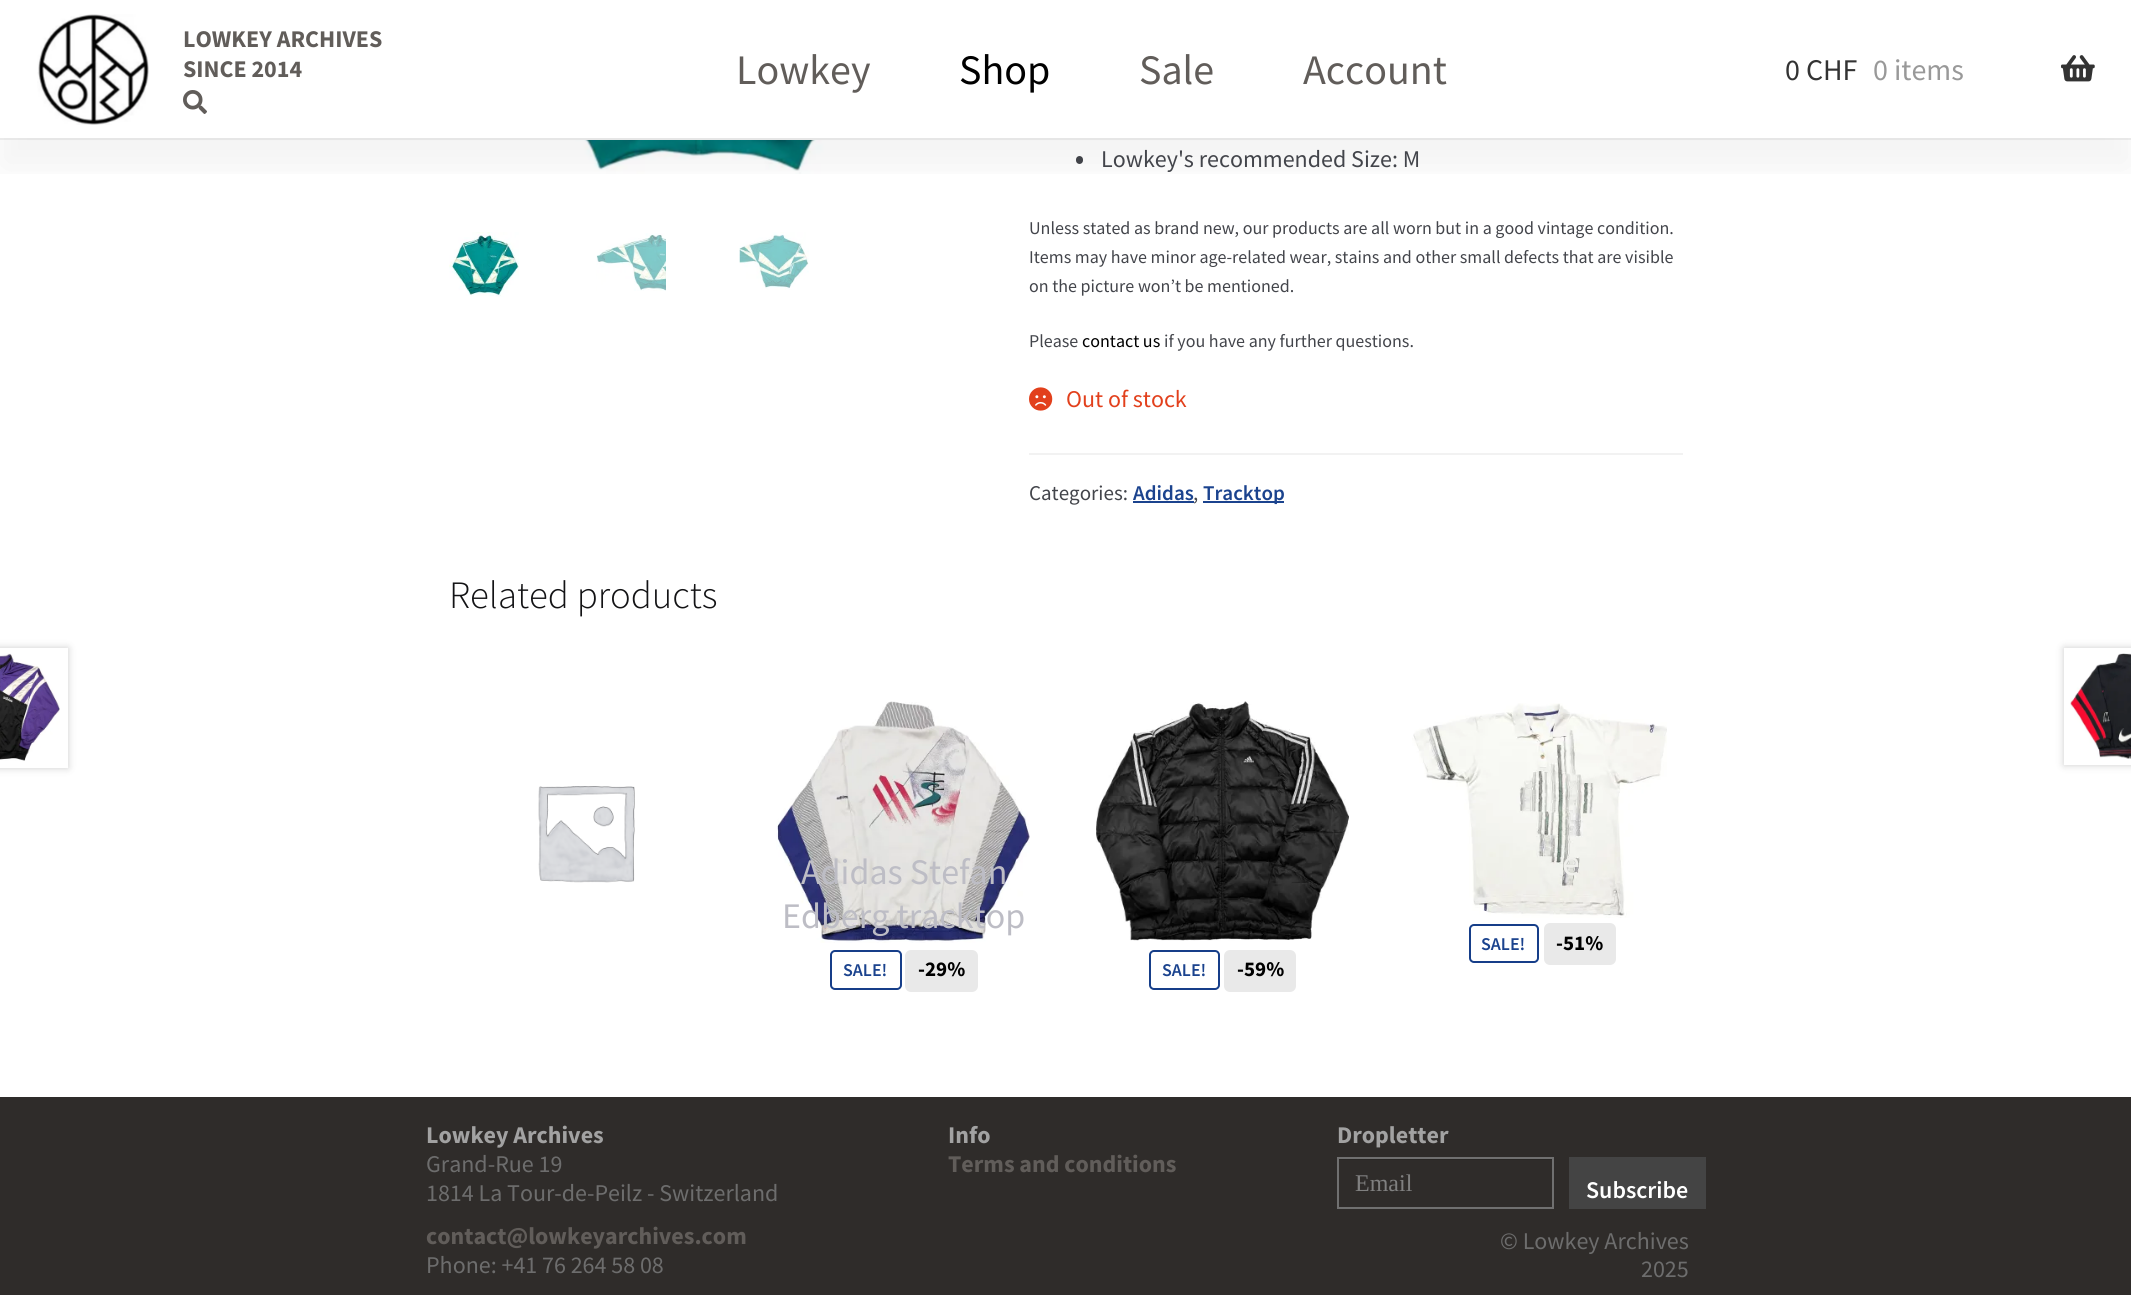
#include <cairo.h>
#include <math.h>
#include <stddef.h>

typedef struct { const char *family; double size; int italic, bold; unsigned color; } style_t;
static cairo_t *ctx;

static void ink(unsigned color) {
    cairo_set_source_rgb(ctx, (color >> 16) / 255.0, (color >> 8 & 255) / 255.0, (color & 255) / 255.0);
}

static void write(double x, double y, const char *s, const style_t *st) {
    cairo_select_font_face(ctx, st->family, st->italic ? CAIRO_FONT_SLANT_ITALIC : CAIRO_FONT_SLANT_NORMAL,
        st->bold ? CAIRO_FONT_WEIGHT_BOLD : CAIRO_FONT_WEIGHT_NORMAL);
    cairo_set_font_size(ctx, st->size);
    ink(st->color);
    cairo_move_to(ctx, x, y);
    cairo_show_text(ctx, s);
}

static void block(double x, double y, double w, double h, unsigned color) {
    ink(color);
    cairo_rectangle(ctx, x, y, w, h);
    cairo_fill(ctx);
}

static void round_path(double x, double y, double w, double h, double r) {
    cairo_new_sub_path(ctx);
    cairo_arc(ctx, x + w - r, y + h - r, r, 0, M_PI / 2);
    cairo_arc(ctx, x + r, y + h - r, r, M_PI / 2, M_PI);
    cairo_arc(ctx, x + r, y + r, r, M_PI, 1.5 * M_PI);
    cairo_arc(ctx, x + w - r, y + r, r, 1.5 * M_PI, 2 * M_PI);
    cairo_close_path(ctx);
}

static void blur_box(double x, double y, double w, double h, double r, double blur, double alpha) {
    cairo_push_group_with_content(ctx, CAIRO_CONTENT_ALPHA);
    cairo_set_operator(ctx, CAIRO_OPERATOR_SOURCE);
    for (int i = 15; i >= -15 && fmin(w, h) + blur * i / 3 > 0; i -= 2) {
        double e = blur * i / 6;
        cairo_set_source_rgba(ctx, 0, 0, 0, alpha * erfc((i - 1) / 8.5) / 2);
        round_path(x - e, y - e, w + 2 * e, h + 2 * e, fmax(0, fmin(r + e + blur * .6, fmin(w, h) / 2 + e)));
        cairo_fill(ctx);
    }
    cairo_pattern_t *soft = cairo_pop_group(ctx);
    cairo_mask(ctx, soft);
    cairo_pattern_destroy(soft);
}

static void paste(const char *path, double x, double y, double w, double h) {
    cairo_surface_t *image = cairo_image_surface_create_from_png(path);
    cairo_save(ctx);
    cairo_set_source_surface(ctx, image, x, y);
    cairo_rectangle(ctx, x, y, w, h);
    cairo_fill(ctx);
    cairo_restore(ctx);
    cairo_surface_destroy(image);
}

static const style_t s1 = {"Source Sans Pro", 24, 0, 1, 0x615d5a};
static const style_t s2 = {"Source Sans Pro", 42, 0, 0, 0x615d5a};
static const style_t s3 = {"Source Sans Pro", 42, 0, 0, 0x000000};
static const style_t s4 = {"Source Sans Pro", 30, 0, 0, 0x333333};
static const style_t s5 = {"Source Sans Pro", 30, 0, 0, 0x999999};
static const style_t s6 = {"Source Sans Pro", 24, 0, 0, 0x43454b};
static const style_t s7 = {"Source Sans Pro", 18, 0, 0, 0x43454b};
static const style_t s8 = {"Source Sans Pro", 18, 0, 0, 0x000000};
static const style_t s9 = {"Source Sans Pro", 24, 0, 0, 0xe2401c};
static const style_t s10 = {"Source Sans Pro", 21, 0, 0, 0x43454b};
static const style_t s11 = {"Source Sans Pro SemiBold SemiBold", 21, 0, 0, 0x1b438e};
static const style_t s12 = {"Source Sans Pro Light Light", 38.75, 0, 0, 0x131315};
static const style_t s13 = {"Source Sans Pro", 36, 0, 0, 0xbdbdc5};
static const style_t s14 = {"Source Sans Pro SemiBold SemiBold", 18, 0, 0, 0x1b438e};
static const style_t s15 = {"Source Sans Pro", 21, 0, 1, 0x000000};
static const style_t s16 = {"Source Sans Pro", 36, 0, 0, 0xf0f0ec};
static const style_t s17 = {"Source Sans Pro", 24, 0, 1, 0xa2a2a2};
static const style_t s18 = {"Source Sans Pro", 24, 0, 0, 0x6d6d6d};
static const style_t s19 = {"Liberation Serif", 24, 0, 0, 0x808080};
static const style_t s20 = {"Source Sans Pro SemiBold SemiBold", 24, 0, 0, 0xffffff};

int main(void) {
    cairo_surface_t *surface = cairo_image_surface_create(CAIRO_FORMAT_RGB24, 2131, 1295);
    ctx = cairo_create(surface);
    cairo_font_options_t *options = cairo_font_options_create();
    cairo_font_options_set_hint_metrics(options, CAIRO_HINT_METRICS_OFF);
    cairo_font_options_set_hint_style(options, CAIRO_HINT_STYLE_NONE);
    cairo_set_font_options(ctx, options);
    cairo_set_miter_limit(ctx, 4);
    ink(0xffffff);
    cairo_paint(ctx);
    block(0, 138, 2131, 2, 0xf0f0f0);
    paste("pic4.png", 491, 140, 422, 34);
    paste("pic5.png", 449, 232, 70, 65);
    paste("pic6.png", 596, 233, 70, 58);
    paste("pic7.png", 739, 232, 70, 58);
    ink(0x43454b);
    round_path(1076, 156, 7, 8, 3.5);
    cairo_fill(ctx);
    cairo_save(ctx);
    cairo_rectangle(ctx, 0, 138, 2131, 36);
    cairo_clip(ctx);
    ink(0x000000);
    blur_box(0, 30, 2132, 138, 0, 22.5, 0.05);
    cairo_restore(ctx);
    paste("pic1.png", 37, 14, 112, 111);
    write(183, 47, "LOWKEY ARCHIVES", &s1);
    write(183, 77, "SINCE 2014", &s1);
    paste("pic2.png", 183, 90, 24, 24);
    write(736, 84, "Lowkey", &s2);
    write(959, 84, "Shop", &s3);
    write(1139, 84, "Sale", &s2);
    write(1303, 84, "Account", &s2);
    write(1785, 80, "0 CHF", &s4);
    write(1873, 80, "0 items", &s5);
    paste("pic3.png", 2061, 55, 34, 27);
    write(1101, 167, "Lowkey's recommended Size: M", &s6);
    write(1029, 234, "Unless stated as brand new, our products are all worn but in a good vintage condition.", &s7);
    write(1029, 263, "Items may have minor age-related wear, stains and other small defects that are visible", &s7);
    write(1029, 292, "on the picture won’t be mentioned.", &s7);
    write(1029, 347, "Please", &s7);
    write(1082, 347, "contact us", &s8);
    write(1164, 347, "if you have any further questions.", &s7);
    paste("pic8.png", 1029, 387, 24, 24);
    write(1066, 407, "Out of stock", &s9);
    block(1029, 453, 654, 2, 0xf2f2f2);
    write(1029, 500, "Categories:", &s10);
    write(1133, 500, "Adidas", &s11);
    block(1133, 501, 61, 2, 0x1b438e);
    write(1193, 500, ",", &s10);
    block(1203, 501, 81, 2, 0x1b438e);
    write(1203, 500, "Tracktop", &s11);
    write(449, 608, "Related products", &s12);
    paste("pic9.png", 538, 786, 97, 97);
    paste("pic10.png", 776, 701, 254, 242);
    write(801, 884, "Adidas Stefan", &s13);
    write(782, 928, "Edberg tracktop", &s13);
    round_path(831, 951, 70, 38, 4);
    ink(0x163e89);
    cairo_stroke(ctx);
    write(843, 976, "SALE!", &s14);
    ink(0xe9e9e9);
    round_path(905, 950, 73, 42, 6);
    cairo_fill(ctx);
    write(918, 976, "-29%", &s15);
    paste("pic11.png", 1412, 703, 255, 215);
    write(1562, 875, "e", &s16);
    round_path(1470, 925, 68, 37, 4);
    ink(0x163e89);
    cairo_stroke(ctx);
    write(1481, 950, "SALE!", &s14);
    ink(0xe9e9e9);
    round_path(1544, 923, 72, 42, 6);
    cairo_fill(ctx);
    write(1556, 950, "-51%", &s15);
    paste("pic12.png", 1096, 701, 253, 240);
    round_path(1150, 951, 69, 38, 4);
    ink(0x163e89);
    cairo_stroke(ctx);
    write(1162, 976, "SALE!", &s14);
    ink(0xe9e9e9);
    round_path(1224, 950, 72, 42, 6);
    cairo_fill(ctx);
    write(1237, 976, "-59%", &s15);
    ink(0x000000);
    blur_box(-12, 648, 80, 120, 0, 4, 0.2);
    block(0, 648, 68, 120, 0xffffff);
    paste("pic13.png", 0, 653, 60, 108);
    cairo_save(ctx);
    cairo_set_fill_rule(ctx, CAIRO_FILL_RULE_EVEN_ODD);
    cairo_new_path(ctx);
    cairo_move_to(ctx, 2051, 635);
    cairo_line_to(ctx, 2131, 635);
    cairo_line_to(ctx, 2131, 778);
    cairo_line_to(ctx, 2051, 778);
    cairo_close_path(ctx);
    cairo_move_to(ctx, 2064, 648);
    cairo_line_to(ctx, 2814, 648);
    cairo_line_to(ctx, 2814, 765);
    cairo_line_to(ctx, 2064, 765);
    cairo_close_path(ctx);
    cairo_clip(ctx);
    ink(0x000000);
    blur_box(2064, 648, 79, 117, 0, 4, 0.2);
    cairo_restore(ctx);
    paste("pic14.png", 2070, 653, 61, 106);
    block(0, 1097, 2131, 198, 0x2f2c2a);
    write(426, 1143, "Lowkey Archives", &s17);
    write(426, 1172, "Grand-Rue 19", &s18);
    write(426, 1201, "1814 La Tour-de-Peilz - Switzerland", &s18);
    write(426, 1244, "contact@lowkeyarchives.com", &s1);
    write(426, 1273, "Phone: +41 76 264 58 08", &s18);
    write(948, 1143, "Info", &s17);
    write(948, 1172, "Terms and conditions", &s1);
    write(1337, 1143, "Dropletter", &s17);
    block(1338, 1159, 215, 1, 0x292725);
    cairo_rectangle(ctx, 1338, 1158, 215, 50);
    ink(0x707070);
    cairo_stroke(ctx);
    write(1355, 1191, "Email", &s19);
    block(1569, 1157, 137, 52, 0x444444);
    write(1586, 1198, "Subscribe", &s20);
    write(1500, 1249, "© Lowkey Archives", &s18);
    write(1641, 1277, "2025", &s18);
    cairo_surface_write_to_png(surface, "screenshot.png");
    cairo_font_options_destroy(options);
    cairo_destroy(ctx);
    cairo_surface_destroy(surface);
    return 0;
}
